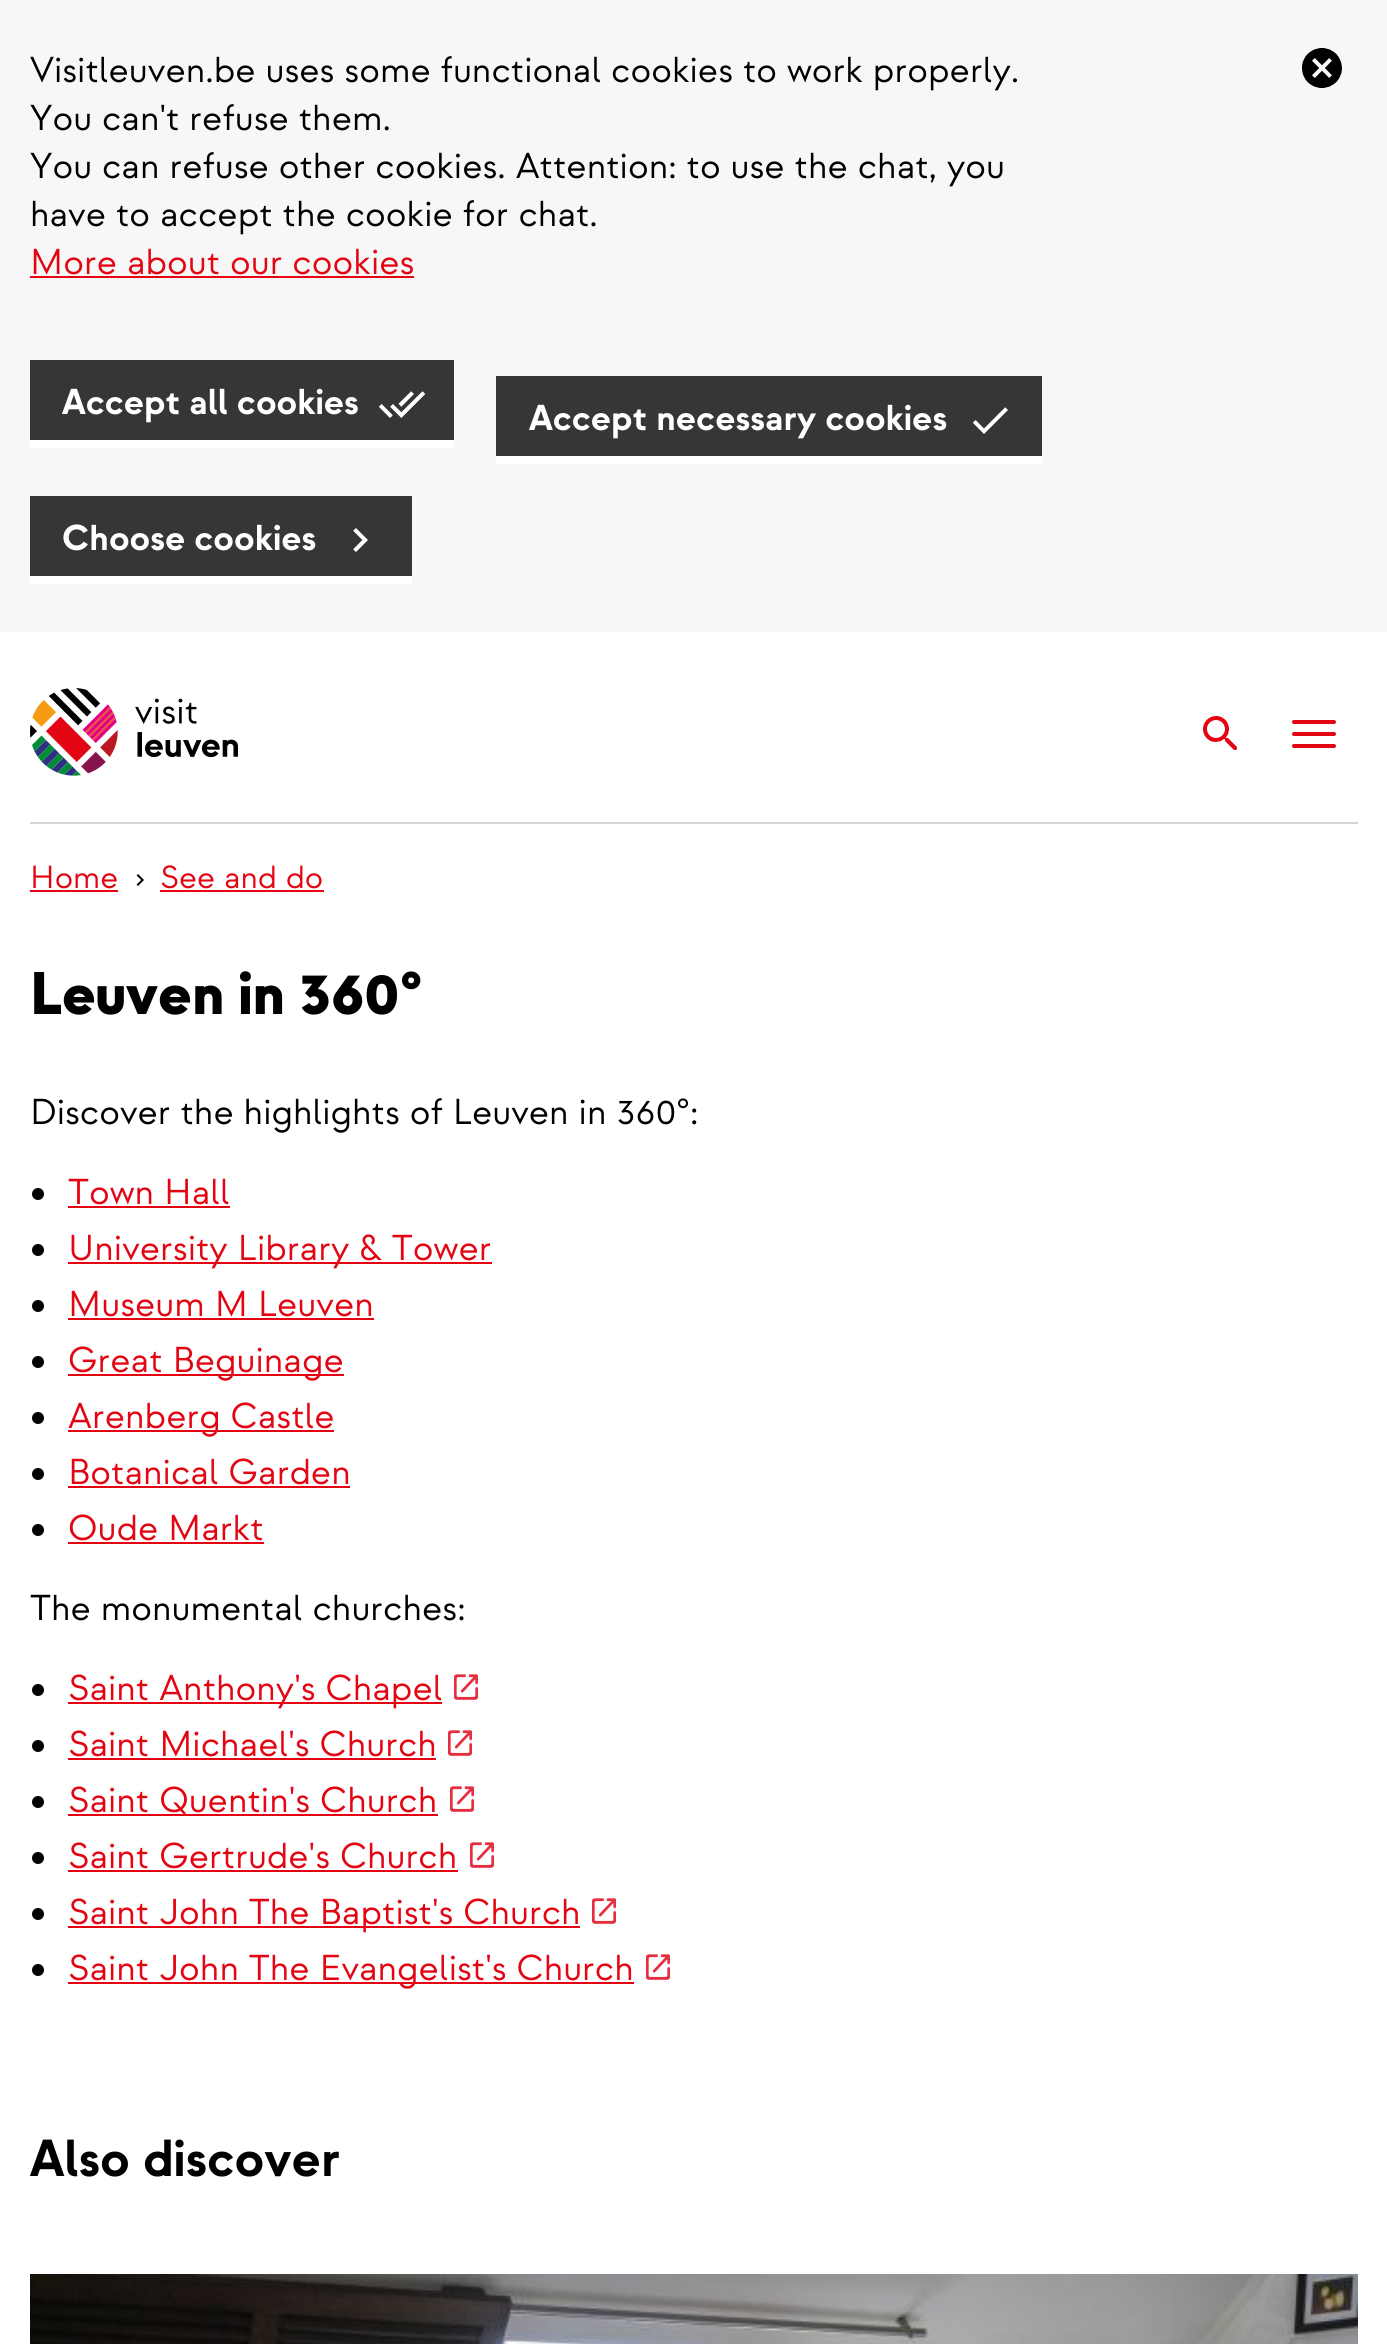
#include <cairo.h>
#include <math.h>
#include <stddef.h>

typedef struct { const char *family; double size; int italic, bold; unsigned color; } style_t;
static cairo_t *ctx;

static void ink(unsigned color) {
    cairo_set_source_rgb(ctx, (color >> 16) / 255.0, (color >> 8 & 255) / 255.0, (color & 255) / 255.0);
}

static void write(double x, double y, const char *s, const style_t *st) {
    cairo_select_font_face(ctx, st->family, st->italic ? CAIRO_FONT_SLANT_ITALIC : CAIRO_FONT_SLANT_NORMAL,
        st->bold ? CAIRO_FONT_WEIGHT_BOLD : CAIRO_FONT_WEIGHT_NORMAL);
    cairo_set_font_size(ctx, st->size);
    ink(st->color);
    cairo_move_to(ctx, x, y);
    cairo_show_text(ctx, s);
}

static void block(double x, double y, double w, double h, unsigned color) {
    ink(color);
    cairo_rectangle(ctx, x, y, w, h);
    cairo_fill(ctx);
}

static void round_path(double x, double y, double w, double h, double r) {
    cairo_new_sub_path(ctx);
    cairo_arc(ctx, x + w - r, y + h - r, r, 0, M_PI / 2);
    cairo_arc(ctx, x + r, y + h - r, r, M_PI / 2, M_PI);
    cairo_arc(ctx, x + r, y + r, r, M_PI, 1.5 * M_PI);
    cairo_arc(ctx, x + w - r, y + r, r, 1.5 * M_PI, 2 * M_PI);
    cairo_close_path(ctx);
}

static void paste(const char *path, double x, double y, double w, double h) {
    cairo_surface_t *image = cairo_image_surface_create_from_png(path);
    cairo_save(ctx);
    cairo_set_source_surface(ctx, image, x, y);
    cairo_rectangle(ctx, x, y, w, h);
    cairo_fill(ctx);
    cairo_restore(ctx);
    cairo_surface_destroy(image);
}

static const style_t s1 = {"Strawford", 36, 0, 0, 0x000000};
static const style_t s2 = {"Strawford", 36, 0, 0, 0xe30512};
static const style_t s3 = {"Strawford", 36, 0, 1, 0xffffff};
static const style_t s4 = {"Strawford", 32, 0, 0, 0xe30512};
static const style_t s5 = {"Strawford Black", 60, 0, 0, 0x000000};
static const style_t s6 = {"Strawford", 52, 0, 1, 0x000000};

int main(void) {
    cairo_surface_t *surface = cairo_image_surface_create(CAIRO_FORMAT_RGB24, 1387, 2344);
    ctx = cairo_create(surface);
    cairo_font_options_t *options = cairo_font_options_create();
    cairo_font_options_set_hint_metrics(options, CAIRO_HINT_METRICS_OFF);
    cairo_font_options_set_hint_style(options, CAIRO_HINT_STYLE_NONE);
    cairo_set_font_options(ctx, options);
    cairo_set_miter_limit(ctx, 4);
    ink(0xffffff);
    cairo_paint(ctx);
    block(0, 0, 1387, 632, 0xf7f7f7);
    write(30, 82, "Visitleuven.be uses some functional cookies to work properly.", &s1);
    write(30, 130, "You can't refuse them.", &s1);
    write(30, 178, "You can refuse other cookies. Attention: to use the chat, you", &s1);
    write(30, 226, "have to accept the cookie for chat.", &s1);
    write(30, 274, "More about our cookies", &s2);
    block(30, 276, 384, 2, 0xe30512);
    paste("pic1.png", 1302, 48, 40, 40);
    block(30, 360, 424, 80, 0x363636);
    block(30, 440, 424, 8, 0xffffff);
    write(62, 414, "Accept all cookies", &s3);
    paste("pic2.png", 379, 391, 47, 27);
    block(496, 376, 546, 80, 0x363636);
    block(496, 456, 546, 8, 0xffffff);
    write(529, 430, "Accept necessary cookies", &s3);
    paste("pic3.png", 972, 407, 36, 27);
    block(30, 496, 382, 80, 0x363636);
    block(30, 576, 382, 8, 0xffffff);
    write(62, 550, "Choose cookies", &s3);
    paste("pic4.png", 353, 528, 15, 24);
    paste("pic5.png", 30, 688, 208, 88);
    paste("pic6.png", 1203, 716, 34, 34);
    ink(0xe30512);
    round_path(1292, 720, 44, 4, 2);
    cairo_fill(ctx);
    round_path(1292, 732, 44, 4, 2);
    cairo_fill(ctx);
    round_path(1292, 744, 44, 4, 2);
    cairo_fill(ctx);
    block(30, 822, 1328, 2, 0xd6d6d6);
    write(30, 888, "Home", &s4);
    block(30, 890, 88, 2, 0xe30512);
    paste("pic7.png", 136, 874, 8, 12);
    write(160, 888, "See and do", &s4);
    block(160, 890, 164, 2, 0xe30512);
    write(30, 1014, "Leuven in 360°", &s5);
    write(30, 1124, "Discover the highlights of Leuven in 360°:", &s1);
    cairo_new_path(ctx);
    cairo_arc(ctx, 38, 1194, 6, 0, 2 * M_PI);
    cairo_fill(ctx);
    write(68, 1204, "Town Hall", &s2);
    block(68, 1206, 162, 2, 0xe30512);
    ink(0x000000);
    cairo_new_path(ctx);
    cairo_arc(ctx, 38, 1250, 6, 0, 2 * M_PI);
    cairo_fill(ctx);
    block(68, 1262, 424, 2, 0xe30512);
    write(68, 1260, "University Library & Tower", &s2);
    ink(0x000000);
    cairo_new_path(ctx);
    cairo_arc(ctx, 38, 1306, 6, 0, 2 * M_PI);
    cairo_fill(ctx);
    write(68, 1316, "Museum M Leuven", &s2);
    block(68, 1318, 306, 2, 0xe30512);
    ink(0x000000);
    cairo_new_path(ctx);
    cairo_arc(ctx, 38, 1362, 6, 0, 2 * M_PI);
    cairo_fill(ctx);
    block(68, 1374, 276, 2, 0xe30512);
    write(68, 1372, "Great Beguinage", &s2);
    ink(0x000000);
    cairo_new_path(ctx);
    cairo_arc(ctx, 38, 1418, 6, 0, 2 * M_PI);
    cairo_fill(ctx);
    block(68, 1430, 266, 2, 0xe30512);
    write(68, 1428, "Arenberg Castle", &s2);
    ink(0x000000);
    cairo_new_path(ctx);
    cairo_arc(ctx, 38, 1474, 6, 0, 2 * M_PI);
    cairo_fill(ctx);
    write(68, 1484, "Botanical Garden", &s2);
    block(68, 1486, 282, 2, 0xe30512);
    ink(0x000000);
    cairo_new_path(ctx);
    cairo_arc(ctx, 38, 1530, 6, 0, 2 * M_PI);
    cairo_fill(ctx);
    write(68, 1540, "Oude Markt", &s2);
    block(68, 1542, 196, 2, 0xe30512);
    write(30, 1620, "The monumental churches:", &s1);
    cairo_new_path(ctx);
    cairo_arc(ctx, 38, 1690, 6, 0, 2 * M_PI);
    cairo_fill(ctx);
    block(68, 1702, 374, 2, 0xe30512);
    write(68, 1700, "Saint Anthony's Chapel", &s2);
    paste("pic8.png", 454, 1674, 24, 26);
    ink(0x000000);
    cairo_arc(ctx, 38, 1746, 6, 0, 2 * M_PI);
    cairo_fill(ctx);
    write(68, 1756, "Saint Michael's Church", &s2);
    block(68, 1758, 368, 2, 0xe30512);
    paste("pic8.png", 448, 1730, 24, 26);
    ink(0x000000);
    cairo_arc(ctx, 38, 1802, 6, 0, 2 * M_PI);
    cairo_fill(ctx);
    write(68, 1812, "Saint Quentin's Church", &s2);
    block(68, 1814, 370, 2, 0xe30512);
    paste("pic8.png", 450, 1786, 24, 26);
    ink(0x000000);
    cairo_arc(ctx, 38, 1858, 6, 0, 2 * M_PI);
    cairo_fill(ctx);
    write(68, 1868, "Saint Gertrude's Church", &s2);
    block(68, 1870, 390, 2, 0xe30512);
    paste("pic8.png", 470, 1842, 24, 26);
    ink(0x000000);
    cairo_arc(ctx, 38, 1914, 6, 0, 2 * M_PI);
    cairo_fill(ctx);
    block(68, 1926, 512, 2, 0xe30512);
    write(68, 1924, "Saint John The Baptist's Church", &s2);
    paste("pic8.png", 592, 1898, 24, 26);
    ink(0x000000);
    cairo_arc(ctx, 38, 1970, 6, 0, 2 * M_PI);
    cairo_fill(ctx);
    block(68, 1982, 566, 2, 0xe30512);
    write(68, 1980, "Saint John The Evangelist's Church", &s2);
    paste("pic8.png", 646, 1954, 24, 26);
    write(30, 2176, "Also discover", &s6);
    paste("pic9.png", 30, 2274, 1328, 70);
    cairo_surface_write_to_png(surface, "screenshot.png");
    cairo_font_options_destroy(options);
    cairo_destroy(ctx);
    cairo_surface_destroy(surface);
    return 0;
}
